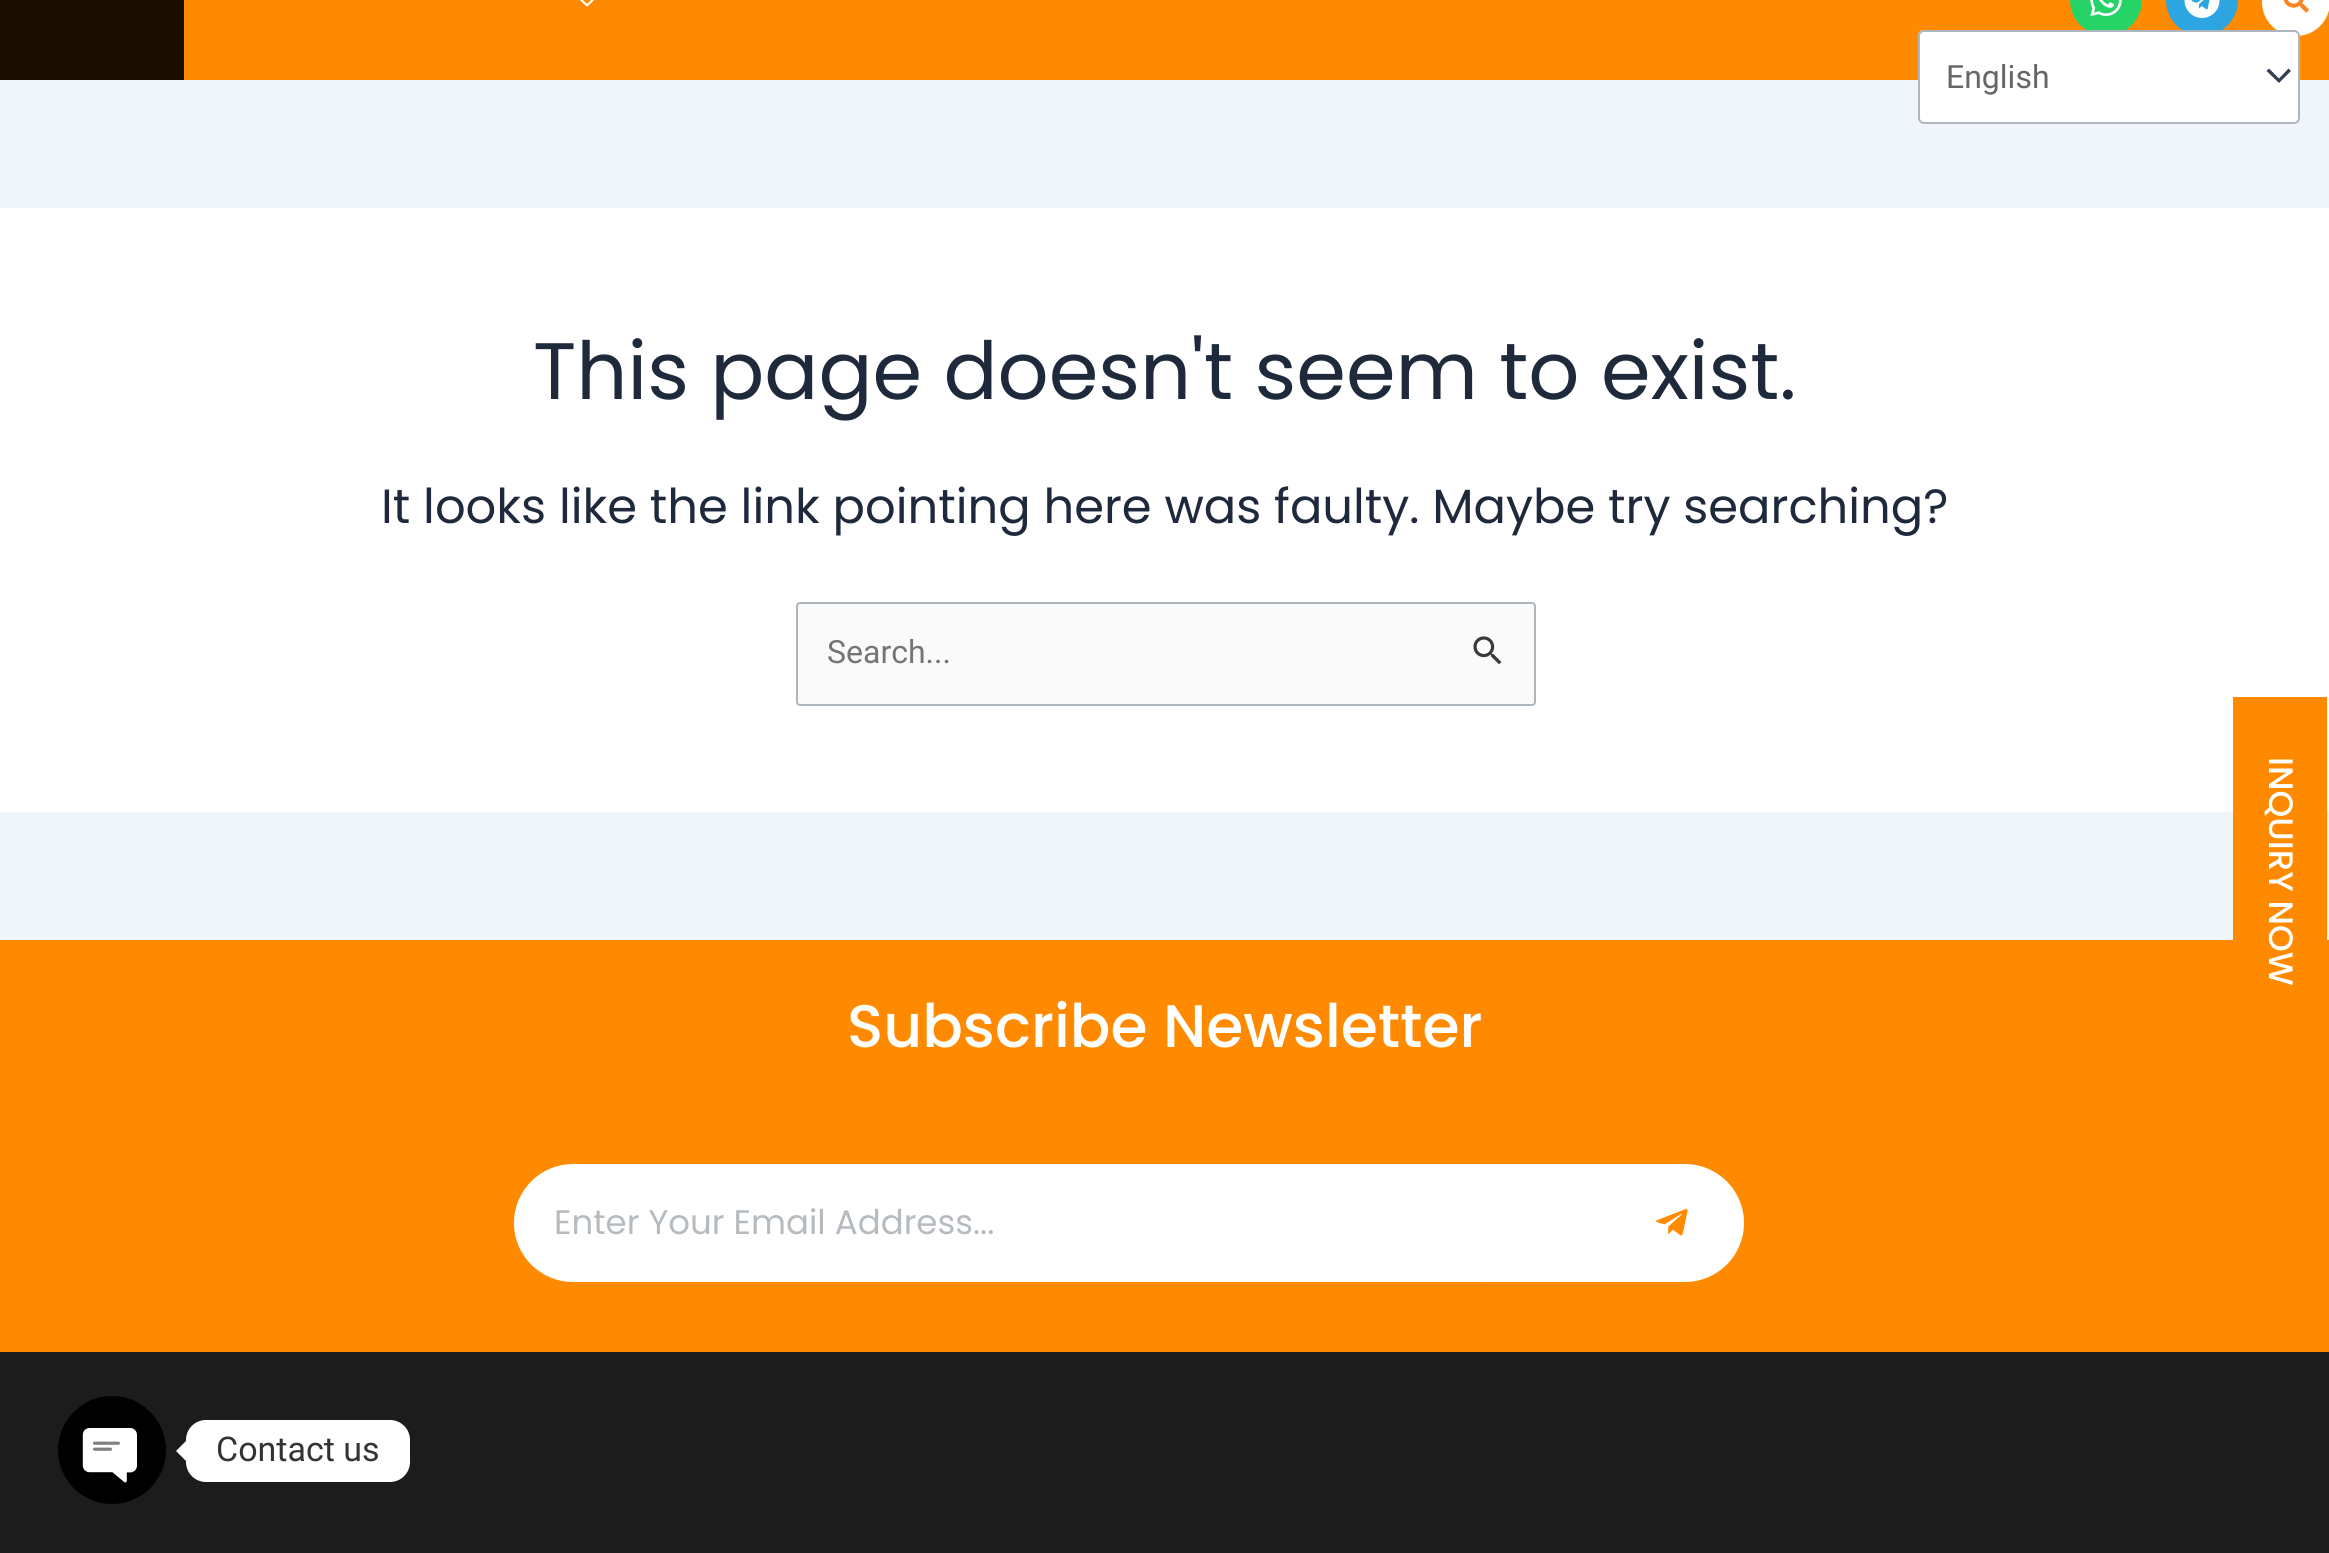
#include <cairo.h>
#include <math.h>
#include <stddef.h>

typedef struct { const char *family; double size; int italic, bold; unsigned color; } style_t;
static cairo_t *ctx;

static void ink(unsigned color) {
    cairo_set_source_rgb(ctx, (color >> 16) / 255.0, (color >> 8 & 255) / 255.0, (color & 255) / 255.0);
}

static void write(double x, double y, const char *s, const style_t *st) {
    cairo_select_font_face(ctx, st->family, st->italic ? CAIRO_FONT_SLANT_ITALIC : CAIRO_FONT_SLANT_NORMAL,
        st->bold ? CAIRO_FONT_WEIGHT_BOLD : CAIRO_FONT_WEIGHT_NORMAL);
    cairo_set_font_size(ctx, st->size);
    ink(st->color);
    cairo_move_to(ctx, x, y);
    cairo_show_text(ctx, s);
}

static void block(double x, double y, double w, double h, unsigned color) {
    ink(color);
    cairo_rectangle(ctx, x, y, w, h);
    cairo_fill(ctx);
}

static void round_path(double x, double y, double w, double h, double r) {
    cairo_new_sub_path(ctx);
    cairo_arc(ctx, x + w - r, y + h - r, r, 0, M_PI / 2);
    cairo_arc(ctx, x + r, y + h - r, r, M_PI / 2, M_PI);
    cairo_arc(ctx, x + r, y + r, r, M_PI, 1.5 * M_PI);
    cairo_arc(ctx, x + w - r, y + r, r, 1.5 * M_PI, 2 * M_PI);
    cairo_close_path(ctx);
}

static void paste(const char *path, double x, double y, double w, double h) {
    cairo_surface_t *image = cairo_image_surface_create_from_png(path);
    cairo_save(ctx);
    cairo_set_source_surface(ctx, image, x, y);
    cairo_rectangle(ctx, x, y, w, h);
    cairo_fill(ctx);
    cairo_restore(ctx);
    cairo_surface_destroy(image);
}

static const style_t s1 = {"Roboto", 32, 0, 0, 0x666666};
static const style_t s2 = {"Poppins", 80, 0, 0, 0x1e293b};
static const style_t s3 = {"Poppins", 48, 0, 0, 0x1e293b};
static const style_t s4 = {"Roboto", 32, 0, 0, 0x757575};
static const style_t s5 = {"Poppins Medium", 34, 0, 0, 0xffffff};
static const style_t s6 = {"Poppins Medium", 60, 0, 0, 0xffffff};
static const style_t s7 = {"Poppins", 34, 0, 0, 0xb6bbc0};
static const style_t s8 = {"Roboto", 34, 0, 0, 0x333333};

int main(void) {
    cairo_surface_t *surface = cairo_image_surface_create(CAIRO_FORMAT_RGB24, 2329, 1553);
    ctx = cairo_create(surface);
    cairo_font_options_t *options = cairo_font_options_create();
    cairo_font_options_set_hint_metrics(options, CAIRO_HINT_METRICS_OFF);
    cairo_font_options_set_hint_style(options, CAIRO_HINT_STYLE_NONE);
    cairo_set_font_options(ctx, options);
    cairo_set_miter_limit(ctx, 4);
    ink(0xf0f5fa);
    cairo_paint(ctx);
    block(184, 0, 2145, 80, 0xff8a00);
    ink(0x25d366);
    cairo_arc(ctx, 2106, 0, 36, 0, 2 * M_PI);
    cairo_fill(ctx);
    ink(0x2ca5e0);
    cairo_arc(ctx, 2202, 0, 36, 0, 2 * M_PI);
    cairo_fill(ctx);
    ink(0xffffff);
    cairo_arc(ctx, 2296, 2, 34, 0, 2 * M_PI);
    cairo_fill(ctx);
    round_path(1918, 30, 382, 94, 6);
    cairo_fill(ctx);
    ink(0x334155);
    cairo_new_path(ctx);
    cairo_move_to(ctx, 2266.5, 71);
    cairo_line_to(ctx, 2279, 83);
    cairo_line_to(ctx, 2291, 71);
    cairo_line_to(ctx, 2288.5, 68.5);
    cairo_line_to(ctx, 2279, 78.5);
    cairo_line_to(ctx, 2269, 68.5);
    cairo_close_path(ctx);
    cairo_fill(ctx);
    round_path(1919, 31, 380, 92, 5);
    ink(0xadb6be);
    cairo_stroke(ctx);
    write(1946, 88, "English", &s1);
    block(0, 208, 2329, 604, 0xffffff);
    write(533, 399, "This page doesn't seem to exist.", &s2);
    write(381, 523, "It looks like the link pointing here was faulty. Maybe try searching?", &s3);
    ink(0xfafafa);
    round_path(797, 603, 738, 102, 3);
    cairo_fill_preserve(ctx);
    ink(0xadb6be);
    cairo_stroke(ctx);
    write(827, 663, "Search...", &s4);
    paste("pic1.png", 1473, 636, 29, 29);
    block(0, 0, 184, 80, 0x1a0e00);
    paste("pic2.png", 580, 0, 14, 7);
    paste("pic3.png", 2090, 0, 32, 17);
    paste("pic4.png", 2184, 0, 36, 18);
    paste("pic5.png", 2283, 0, 26, 13);
    block(2233, 697, 94, 243, 0xff8a00);
    block(0, 940, 2329, 412, 0xff8a00);
    cairo_save(ctx);
    cairo_translate(ctx, 2269, 757);
    cairo_rotate(ctx, 90 * M_PI / 180);
    write(0, 0, "INQUIRY NOW", &s5);
    cairo_restore(ctx);
    write(847, 1047, "Subscribe Newsletter", &s6);
    round_path(514, 1164, 1030, 118, 59);
    cairo_fill(ctx);
    write(554, 1234, "Enter Your Email Address...", &s7);
    ink(0xffffff);
    cairo_new_path(ctx);
    cairo_move_to(ctx, 1488, 1164);
    cairo_line_to(ctx, 1685, 1164);
    cairo_curve_to(ctx, 1717.5, 1164, 1744, 1190.5, 1744, 1223);
    cairo_curve_to(ctx, 1744, 1255.5, 1717.5, 1282, 1685, 1282);
    cairo_line_to(ctx, 1488, 1282);
    cairo_close_path(ctx);
    cairo_fill(ctx);
    paste("pic6.png", 1656, 1209, 32, 27);
    block(0, 1352, 2329, 201, 0x1c1c1c);
    ink(0x000000);
    cairo_arc(ctx, 112, 1450, 54, 0, 2 * M_PI);
    cairo_fill(ctx);
    paste("pic7.png", 82, 1399, 64, 84);
    ink(0xffffff);
    round_path(186, 1420, 224, 62, 20);
    cairo_fill(ctx);
    cairo_new_path(ctx);
    cairo_move_to(ctx, 186, 1441);
    cairo_line_to(ctx, 186, 1461);
    cairo_line_to(ctx, 176, 1451);
    cairo_close_path(ctx);
    cairo_fill(ctx);
    write(216, 1461, "Contact us", &s8);
    cairo_surface_write_to_png(surface, "screenshot.png");
    cairo_font_options_destroy(options);
    cairo_destroy(ctx);
    cairo_surface_destroy(surface);
    return 0;
}
